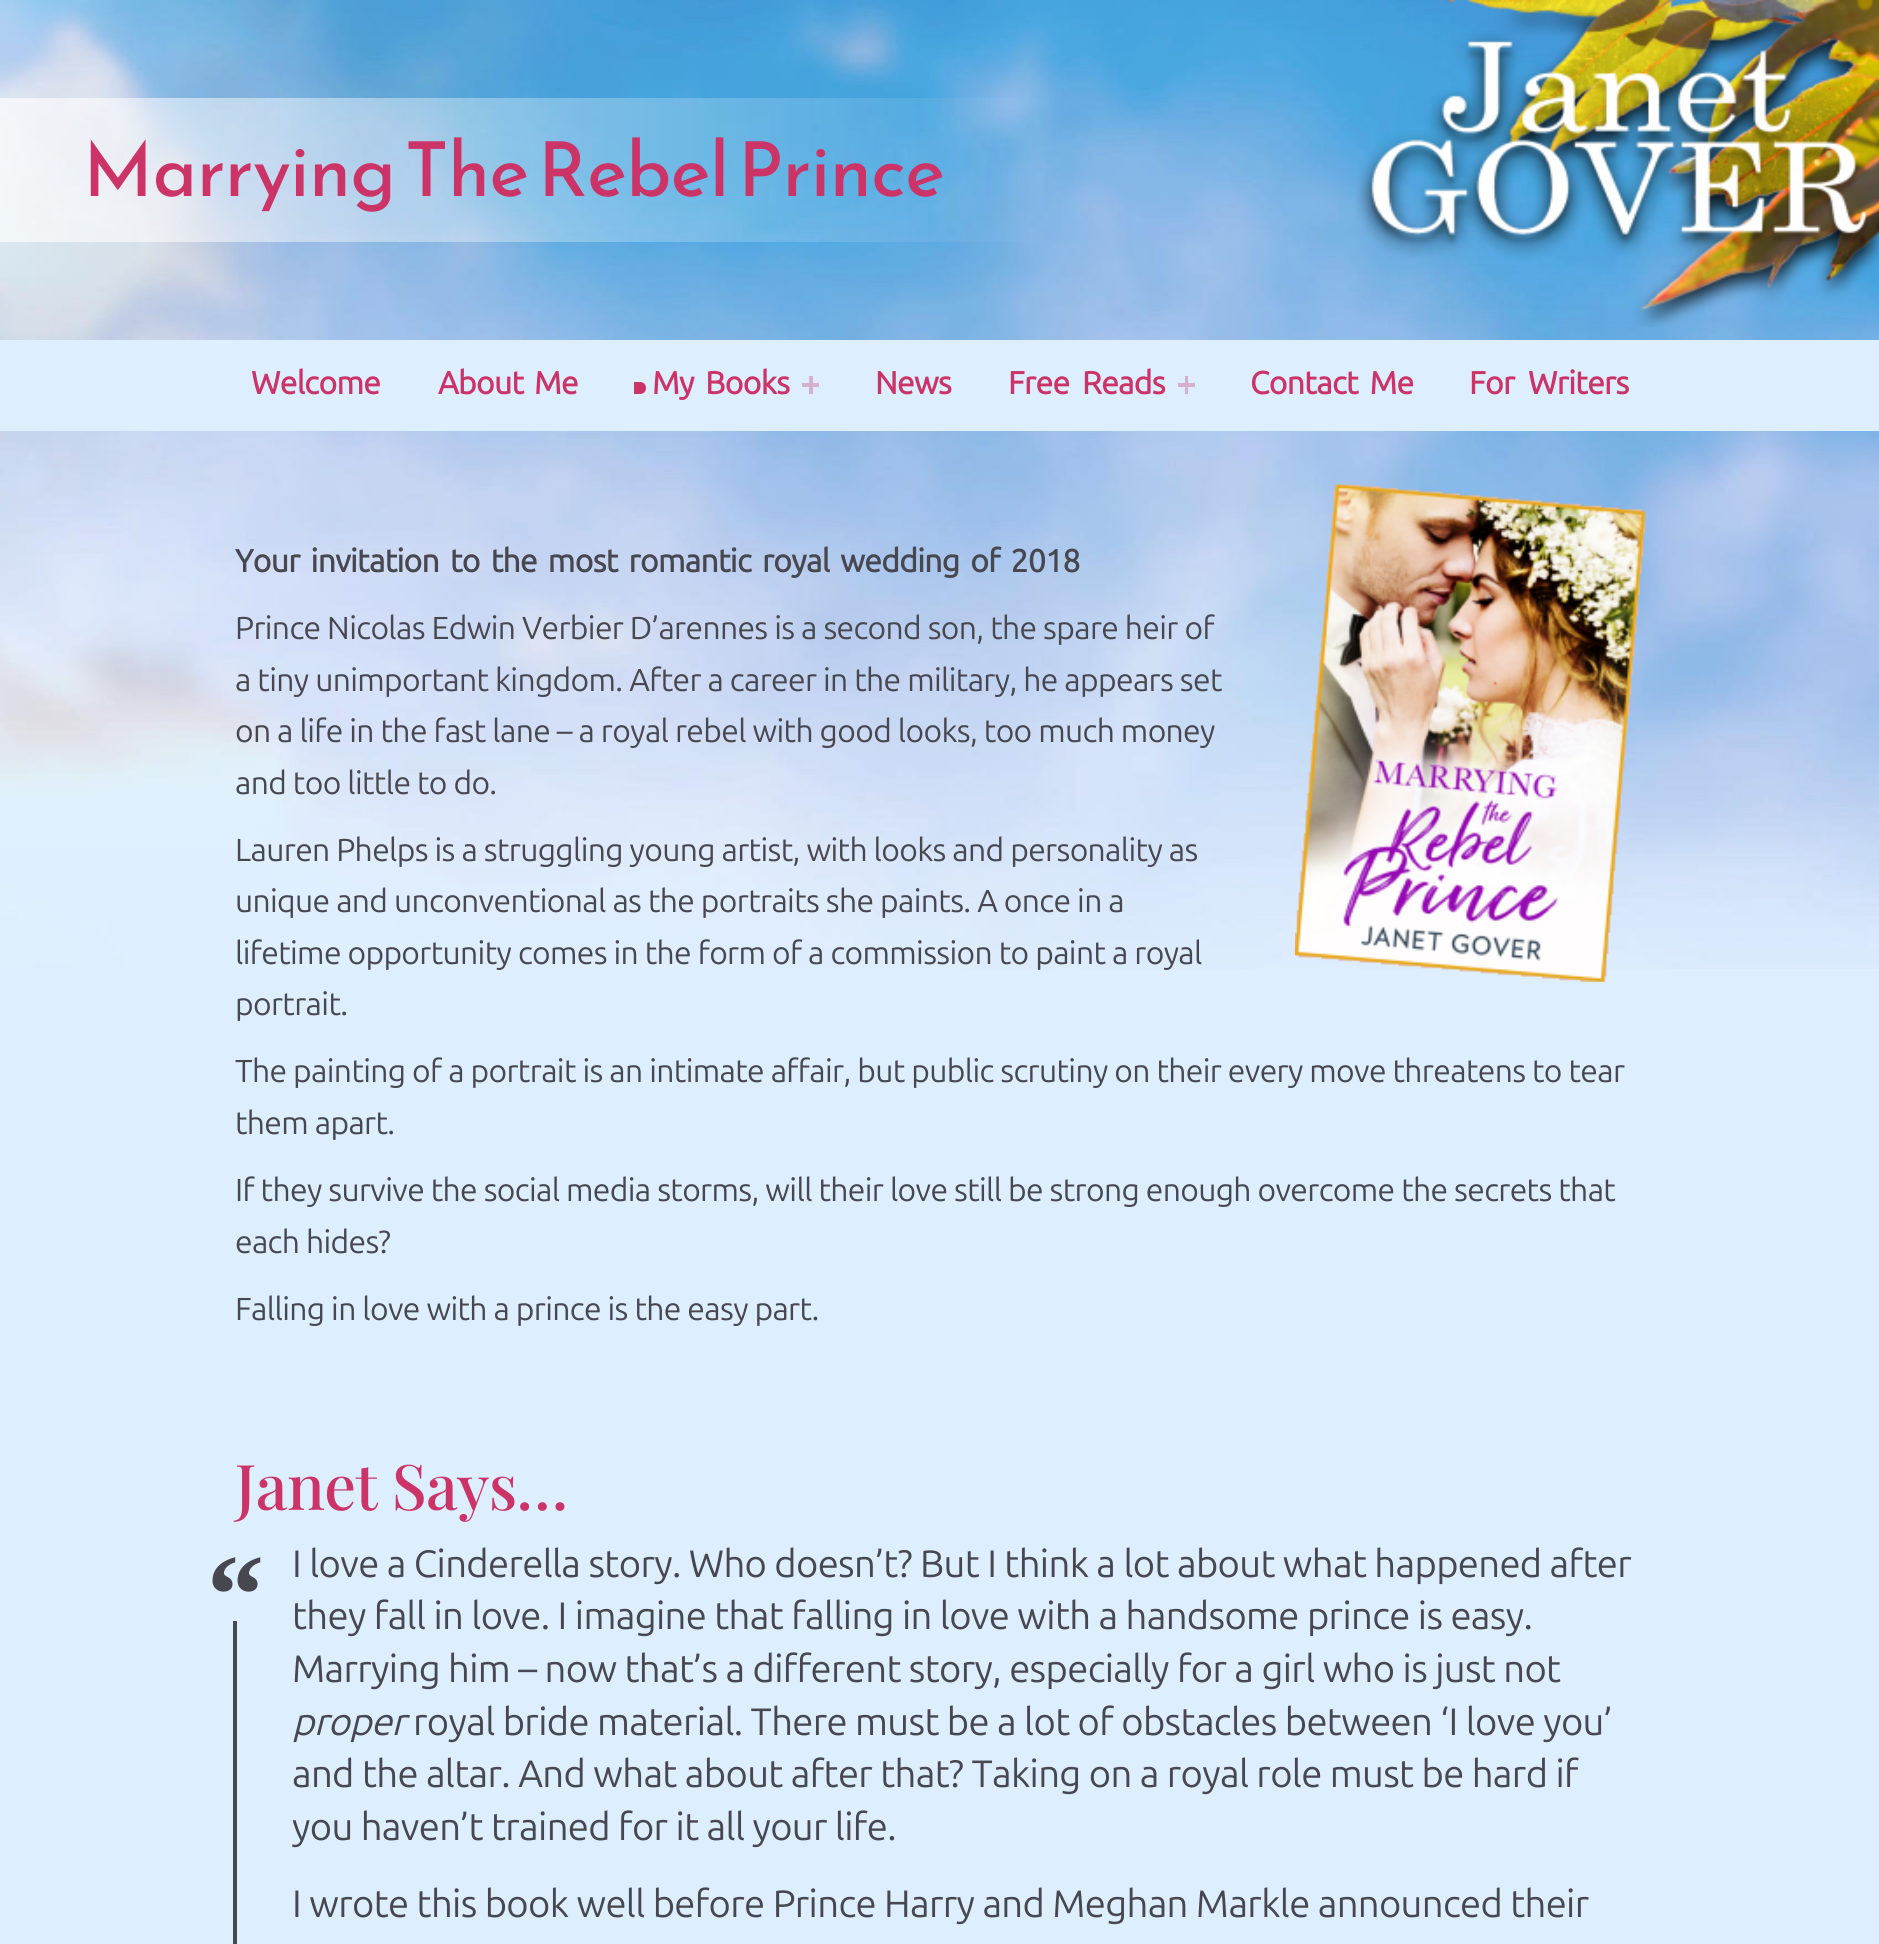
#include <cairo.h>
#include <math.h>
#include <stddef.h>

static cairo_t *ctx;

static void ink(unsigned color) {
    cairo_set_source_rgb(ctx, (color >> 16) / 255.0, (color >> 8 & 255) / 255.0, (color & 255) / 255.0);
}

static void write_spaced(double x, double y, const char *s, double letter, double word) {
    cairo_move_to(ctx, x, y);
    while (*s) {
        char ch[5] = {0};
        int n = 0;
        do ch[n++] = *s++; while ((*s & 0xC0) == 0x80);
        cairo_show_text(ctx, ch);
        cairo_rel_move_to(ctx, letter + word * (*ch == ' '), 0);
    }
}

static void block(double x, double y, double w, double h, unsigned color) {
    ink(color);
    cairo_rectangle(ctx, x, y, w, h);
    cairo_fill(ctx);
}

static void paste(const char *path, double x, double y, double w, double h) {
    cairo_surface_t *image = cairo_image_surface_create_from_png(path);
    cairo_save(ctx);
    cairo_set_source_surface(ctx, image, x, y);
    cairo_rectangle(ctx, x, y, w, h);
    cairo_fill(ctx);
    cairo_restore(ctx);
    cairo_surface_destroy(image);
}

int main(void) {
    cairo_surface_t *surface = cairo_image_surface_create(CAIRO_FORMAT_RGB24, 1879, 1944);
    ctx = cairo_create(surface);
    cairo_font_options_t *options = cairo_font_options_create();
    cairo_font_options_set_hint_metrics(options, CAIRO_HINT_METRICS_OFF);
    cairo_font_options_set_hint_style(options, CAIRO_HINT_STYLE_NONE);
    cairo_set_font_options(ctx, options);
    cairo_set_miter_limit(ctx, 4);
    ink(0xddeeff);
    cairo_paint(ctx);
    paste("pic1.png", 0, 0, 1879, 969);
    cairo_select_font_face(ctx, "Reem Kufi", CAIRO_FONT_SLANT_NORMAL, CAIRO_FONT_WEIGHT_NORMAL);
    cairo_set_font_size(ctx, 75.5);
    ink(0xcc3366);
    write_spaced(83, 196, "Marrying The Rebel Prince", -0.64, 0);
    paste("pic2.png", 1356, 0, 523, 327);
    block(0, 340, 1879, 91, 0xddeeff);
    cairo_select_font_face(ctx, "Ubuntu Sans", CAIRO_FONT_SLANT_NORMAL, CAIRO_FONT_WEIGHT_BOLD);
    cairo_set_font_size(ctx, 31.8);
    ink(0xcc3366);
    write_spaced(251, 394, "Welcome", -0.64, 0);
    write_spaced(438, 394, "About Me", -0.64, 4);
    cairo_new_path(ctx);
    cairo_move_to(ctx, 634, 382);
    cairo_line_to(ctx, 640, 382);
    cairo_curve_to(ctx, 643.5, 382, 646, 384.5, 646, 388);
    cairo_curve_to(ctx, 646, 391.5, 643.5, 394, 640, 394);
    cairo_line_to(ctx, 634, 394);
    cairo_close_path(ctx);
    cairo_fill(ctx);
    write_spaced(652, 394, "My Books", -0.64, 5);
    block(802, 383, 17, 4, 0xd7b0cd);
    block(809, 376, 4, 18, 0xd7b0cd);
    ink(0xcc3366);
    write_spaced(875, 394, "News", -0.64, 0);
    write_spaced(1008, 394, "Free Reads", -0.64, 6);
    block(1178, 383, 17, 4, 0xd7b0cd);
    block(1185, 376, 3, 18, 0xd7b0cd);
    ink(0xcc3366);
    write_spaced(1250, 394, "Contact Me", -0.64, 5);
    write_spaced(1469, 394, "For Writers", -0.64, 7);
    ink(0x47474f);
    write_spaced(235, 572, "Your invitation to the most romantic royal wedding of 2018", -0.64, 4.25);
    paste("pic3.png", 1295, 484, 350, 498);
    cairo_select_font_face(ctx, "Ubuntu Sans", CAIRO_FONT_SLANT_NORMAL, CAIRO_FONT_WEIGHT_NORMAL);
    write_spaced(235, 639, "Prince Nicolas Edwin Verbier D’arennes is a second son, the spare heir of", -0.64, 0);
    write_spaced(235, 691, "a tiny unimportant kingdom. After a career in the military, he appears set", -0.64, 0);
    write_spaced(235, 742, "on a life in the fast lane – a royal rebel with good looks, too much money", -0.64, 0);
    write_spaced(235, 794, "and too little to do.", -0.64, 0);
    write_spaced(235, 861, "Lauren Phelps is a struggling young artist, with looks and personality as", -0.64, 0);
    write_spaced(235, 912, "unique and unconventional as the portraits she paints. A once in a", -0.64, 0);
    write_spaced(235, 964, "lifetime opportunity comes in the form of a commission to paint a royal", -0.64, 0);
    write_spaced(235, 1015, "portrait.", -0.64, 0);
    write_spaced(235, 1082, "The painting of a portrait is an intimate affair, but public scrutiny on their every move threatens to tear", -0.64, 0);
    write_spaced(235, 1134, "them apart.", -0.64, 0);
    write_spaced(235, 1201, "If they survive the social media storms, will their love still be strong enough overcome the secrets that", -0.64, 0);
    write_spaced(235, 1253, "each hides?", -0.64, 0);
    write_spaced(235, 1320, "Falling in love with a prince is the easy part.", -0.64, 0);
    cairo_select_font_face(ctx, "Playfair Display Medium", CAIRO_FONT_SLANT_NORMAL, CAIRO_FONT_WEIGHT_NORMAL);
    cairo_set_font_size(ctx, 63);
    ink(0xcc3366);
    write_spaced(235, 1510, "Janet Says…", -0.64, 0);
    block(233, 1621, 4, 323, 0x47474f);
    cairo_select_font_face(ctx, "Liberation Serif", CAIRO_FONT_SLANT_NORMAL, CAIRO_FONT_WEIGHT_BOLD);
    cairo_set_font_size(ctx, 114);
    write_spaced(207, 1633, "“", -0.64, 0);
    cairo_select_font_face(ctx, "Ubuntu Sans", CAIRO_FONT_SLANT_NORMAL, CAIRO_FONT_WEIGHT_NORMAL);
    cairo_set_font_size(ctx, 38.15);
    write_spaced(292, 1577, "I love a Cinderella story. Who doesn’t? But I think a lot about what happened after", -0.64, 0);
    write_spaced(292, 1629, "they fall in love. I imagine that falling in love with a handsome prince is easy.", -0.64, 0);
    write_spaced(292, 1682, "Marrying him – now that’s a different story, especially for a girl who is just not", -0.64, 0);
    cairo_select_font_face(ctx, "Ubuntu Sans", CAIRO_FONT_SLANT_ITALIC, CAIRO_FONT_WEIGHT_NORMAL);
    write_spaced(292, 1735, "proper", -0.64, 0);
    cairo_select_font_face(ctx, "Ubuntu Sans", CAIRO_FONT_SLANT_NORMAL, CAIRO_FONT_WEIGHT_NORMAL);
    write_spaced(413, 1735, "royal bride material. There must be a lot of obstacles between ‘I love you’", -0.64, 0);
    write_spaced(292, 1787, "and the altar. And what about after that? Taking on a royal role must be hard if", -0.64, 0);
    write_spaced(292, 1840, "you haven’t trained for it all your life.", -0.64, 0);
    write_spaced(292, 1917, "I wrote this book well before Prince Harry and Meghan Markle announced their", -0.64, 0);
    cairo_surface_write_to_png(surface, "screenshot.png");
    cairo_font_options_destroy(options);
    cairo_destroy(ctx);
    cairo_surface_destroy(surface);
    return 0;
}
